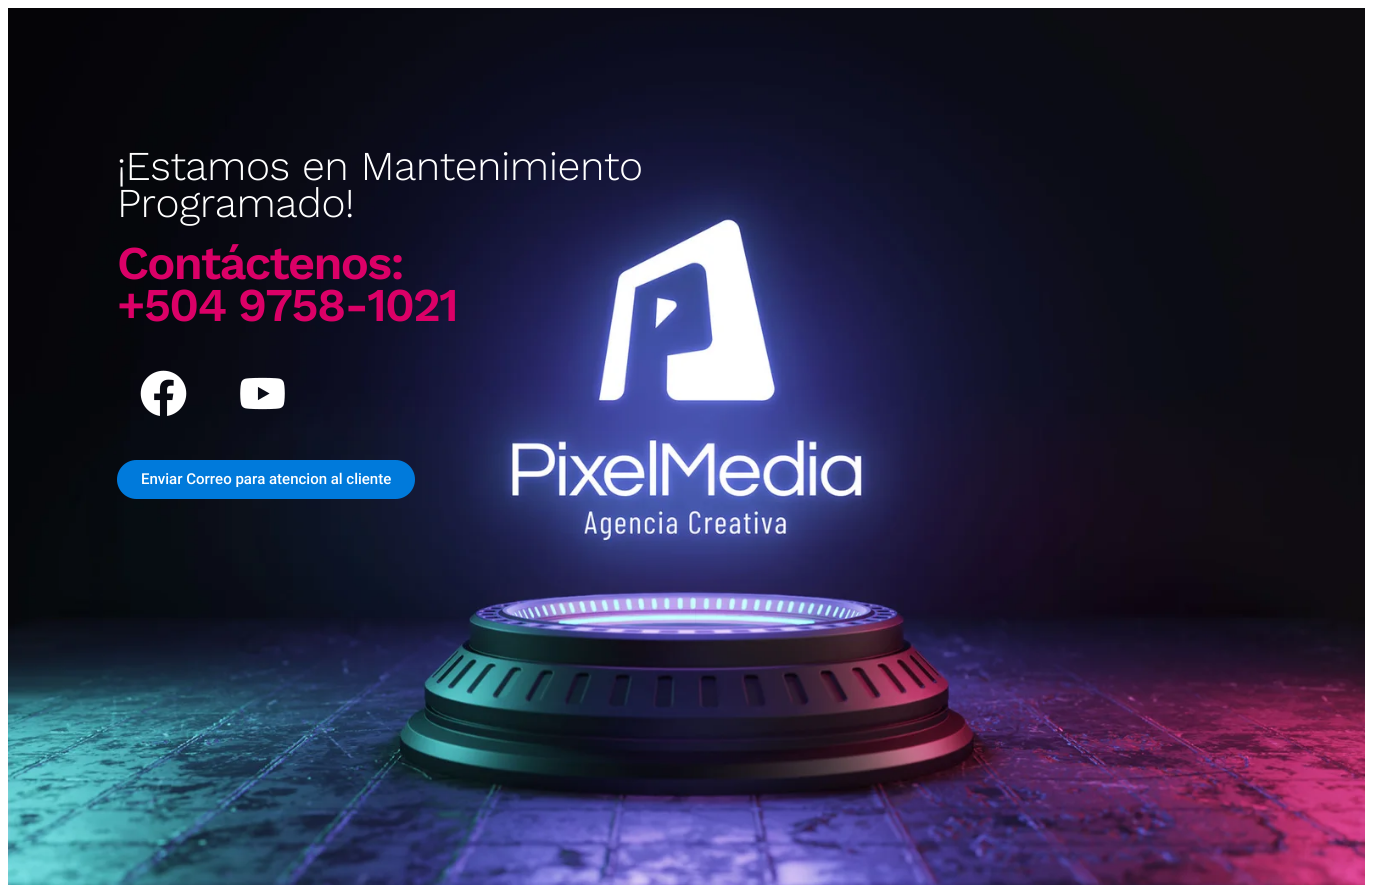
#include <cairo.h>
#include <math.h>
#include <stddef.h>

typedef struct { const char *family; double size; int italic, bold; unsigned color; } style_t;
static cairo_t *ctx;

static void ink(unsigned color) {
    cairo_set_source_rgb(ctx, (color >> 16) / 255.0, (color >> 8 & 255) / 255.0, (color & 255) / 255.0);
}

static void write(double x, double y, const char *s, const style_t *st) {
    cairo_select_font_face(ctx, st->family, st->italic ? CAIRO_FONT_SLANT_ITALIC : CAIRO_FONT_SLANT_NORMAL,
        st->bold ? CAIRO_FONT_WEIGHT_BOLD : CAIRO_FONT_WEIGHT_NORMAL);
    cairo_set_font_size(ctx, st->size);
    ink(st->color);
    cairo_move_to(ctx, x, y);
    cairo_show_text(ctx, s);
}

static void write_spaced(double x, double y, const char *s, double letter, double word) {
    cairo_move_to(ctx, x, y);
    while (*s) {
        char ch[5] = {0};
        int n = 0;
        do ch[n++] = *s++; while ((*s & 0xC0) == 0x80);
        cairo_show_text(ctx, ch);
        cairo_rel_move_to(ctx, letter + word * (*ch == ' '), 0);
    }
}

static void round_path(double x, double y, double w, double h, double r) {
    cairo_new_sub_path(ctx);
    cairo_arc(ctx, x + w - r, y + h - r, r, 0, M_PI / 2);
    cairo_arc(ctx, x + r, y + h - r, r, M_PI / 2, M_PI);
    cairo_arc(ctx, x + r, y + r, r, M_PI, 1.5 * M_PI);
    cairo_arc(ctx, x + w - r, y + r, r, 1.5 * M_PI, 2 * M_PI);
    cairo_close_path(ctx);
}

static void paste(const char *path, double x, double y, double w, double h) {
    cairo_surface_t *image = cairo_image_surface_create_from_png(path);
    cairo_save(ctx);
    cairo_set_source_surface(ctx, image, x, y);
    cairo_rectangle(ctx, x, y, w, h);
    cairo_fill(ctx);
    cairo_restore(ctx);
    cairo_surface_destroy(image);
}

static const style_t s1 = {"Roboto Medium", 15, 0, 0, 0xffffff};

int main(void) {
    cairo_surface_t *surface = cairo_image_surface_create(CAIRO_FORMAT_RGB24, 1373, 885);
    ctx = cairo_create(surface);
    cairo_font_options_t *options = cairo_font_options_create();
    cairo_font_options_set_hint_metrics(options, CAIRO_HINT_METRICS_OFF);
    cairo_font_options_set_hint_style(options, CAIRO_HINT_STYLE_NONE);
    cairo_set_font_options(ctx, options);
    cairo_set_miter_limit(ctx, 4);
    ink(0xffffff);
    cairo_paint(ctx);
    paste("pic1.png", 8, 8, 1357, 877);
    cairo_select_font_face(ctx, "Work Sans Light", CAIRO_FONT_SLANT_NORMAL, CAIRO_FONT_WEIGHT_NORMAL);
    cairo_set_font_size(ctx, 41);
    ink(0xffffff);
    write_spaced(117, 180, "¡Estamos en Mantenimiento", -0.5, 0);
    write_spaced(117, 217, "Programado!", -0.5, 0);
    cairo_select_font_face(ctx, "Work Sans SemiBold", CAIRO_FONT_SLANT_NORMAL, CAIRO_FONT_WEIGHT_NORMAL);
    cairo_set_font_size(ctx, 47);
    ink(0xdb0067);
    write_spaced(117, 279, "Contáctenos:", -1.75, 0);
    write_spaced(117, 321, "+504 9758-1021", -1.75, 0);
    paste("pic2.png", 140, 370, 47, 46);
    paste("pic3.png", 240, 377, 45, 33);
    ink(0x007adb);
    round_path(117, 460, 298, 39, 19.5);
    cairo_fill(ctx);
    write(141, 484, "Enviar Correo para atencion al cliente", &s1);
    cairo_surface_write_to_png(surface, "screenshot.png");
    cairo_font_options_destroy(options);
    cairo_destroy(ctx);
    cairo_surface_destroy(surface);
    return 0;
}
